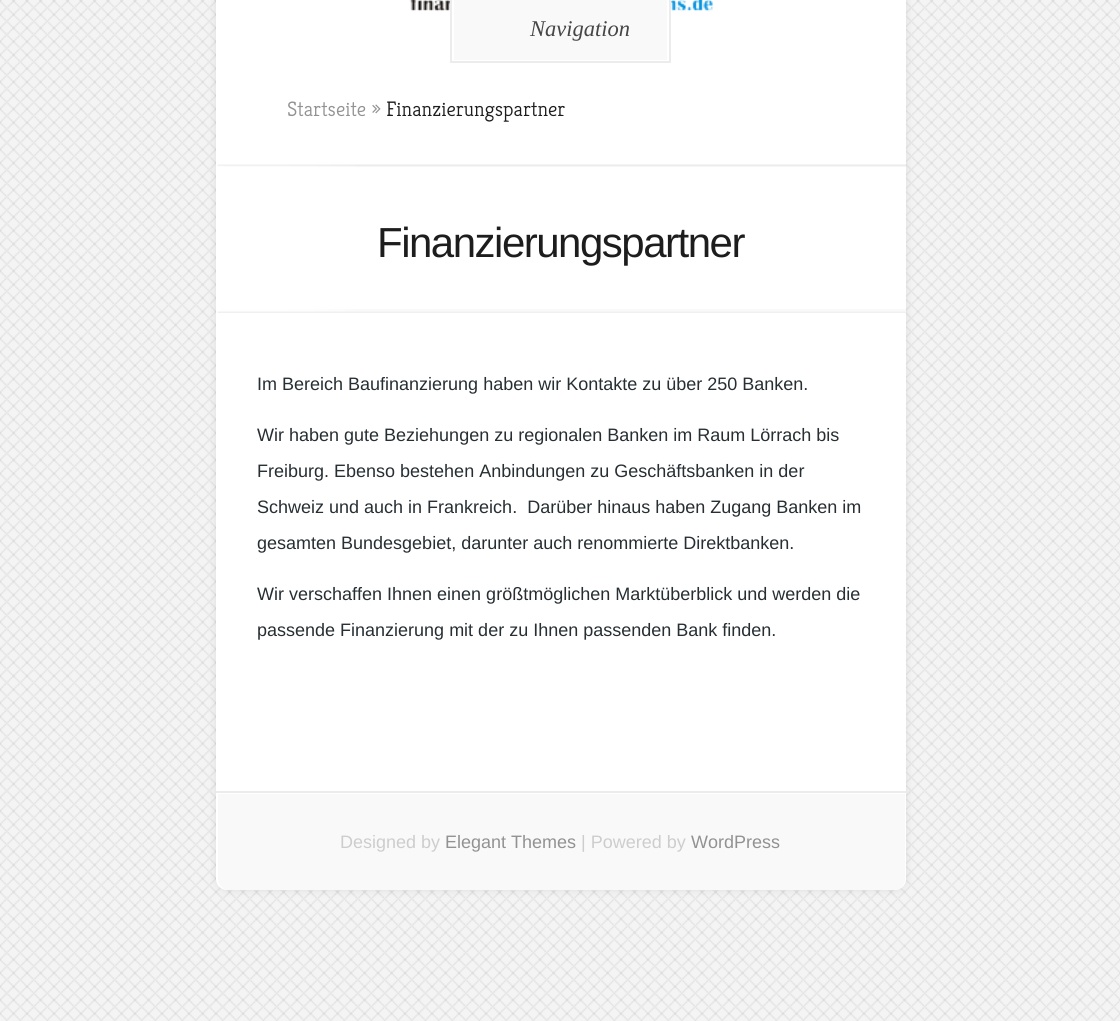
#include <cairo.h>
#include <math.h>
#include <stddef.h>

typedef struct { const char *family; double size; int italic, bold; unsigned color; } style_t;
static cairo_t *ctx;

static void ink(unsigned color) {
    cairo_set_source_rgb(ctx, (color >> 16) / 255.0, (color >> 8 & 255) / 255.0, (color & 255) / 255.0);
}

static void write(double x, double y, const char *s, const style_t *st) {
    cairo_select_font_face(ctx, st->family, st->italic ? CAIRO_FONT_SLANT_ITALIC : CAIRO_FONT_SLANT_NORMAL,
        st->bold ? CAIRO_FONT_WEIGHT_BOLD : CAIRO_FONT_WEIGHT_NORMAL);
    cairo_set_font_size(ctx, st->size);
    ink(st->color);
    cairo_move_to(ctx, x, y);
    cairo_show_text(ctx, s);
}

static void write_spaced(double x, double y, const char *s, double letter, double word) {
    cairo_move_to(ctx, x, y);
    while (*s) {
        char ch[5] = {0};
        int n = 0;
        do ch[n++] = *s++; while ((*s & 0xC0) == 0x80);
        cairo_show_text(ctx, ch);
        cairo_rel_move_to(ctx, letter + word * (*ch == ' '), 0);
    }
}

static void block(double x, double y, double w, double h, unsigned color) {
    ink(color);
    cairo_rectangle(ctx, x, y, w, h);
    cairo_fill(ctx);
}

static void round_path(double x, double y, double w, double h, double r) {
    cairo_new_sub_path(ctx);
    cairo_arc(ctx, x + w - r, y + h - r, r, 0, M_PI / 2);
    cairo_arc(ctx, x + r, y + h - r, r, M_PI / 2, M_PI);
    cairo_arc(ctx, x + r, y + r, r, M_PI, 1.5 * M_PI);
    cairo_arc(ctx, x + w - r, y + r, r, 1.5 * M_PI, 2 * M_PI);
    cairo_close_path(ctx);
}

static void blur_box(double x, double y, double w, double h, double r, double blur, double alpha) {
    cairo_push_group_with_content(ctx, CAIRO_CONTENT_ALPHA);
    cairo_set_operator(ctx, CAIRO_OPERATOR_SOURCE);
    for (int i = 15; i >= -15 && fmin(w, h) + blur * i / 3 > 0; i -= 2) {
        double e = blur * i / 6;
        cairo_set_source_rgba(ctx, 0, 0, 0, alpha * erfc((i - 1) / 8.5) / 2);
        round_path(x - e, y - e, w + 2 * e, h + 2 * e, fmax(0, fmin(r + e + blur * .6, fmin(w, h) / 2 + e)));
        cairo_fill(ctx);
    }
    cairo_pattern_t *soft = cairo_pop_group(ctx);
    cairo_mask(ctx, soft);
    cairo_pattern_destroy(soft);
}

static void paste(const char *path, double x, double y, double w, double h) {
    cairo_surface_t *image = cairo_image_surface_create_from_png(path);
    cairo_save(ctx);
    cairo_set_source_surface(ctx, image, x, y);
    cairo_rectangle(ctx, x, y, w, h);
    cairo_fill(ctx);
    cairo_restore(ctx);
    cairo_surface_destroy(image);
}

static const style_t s1 = {"Liberation Serif", 22.5, 1, 0, 0x464646};
static const style_t s2 = {"Kreon Light", 21, 0, 0, 0x929292};
static const style_t s3 = {"Kreon Light", 21, 0, 0, 0x1d1d1d};
static const style_t s4 = {"Liberation Sans", 18, 0, 0, 0x272f33};
static const style_t s5 = {"Liberation Sans", 18, 0, 0, 0xcdcdcd};
static const style_t s6 = {"Liberation Sans", 18, 0, 0, 0x929292};

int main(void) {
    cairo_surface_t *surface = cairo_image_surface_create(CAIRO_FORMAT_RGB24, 1120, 1021);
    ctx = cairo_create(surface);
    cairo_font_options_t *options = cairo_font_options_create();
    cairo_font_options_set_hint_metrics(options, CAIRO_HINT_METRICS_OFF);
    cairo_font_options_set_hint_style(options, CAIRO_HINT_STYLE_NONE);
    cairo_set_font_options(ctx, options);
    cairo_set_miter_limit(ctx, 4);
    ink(0xf4f4f4);
    cairo_paint(ctx);
    paste("pic1.png", 0, 0, 1120, 1021);
    ink(0x000000);
    blur_box(216, -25, 690, 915, 11, 4.5, 0.1);
    ink(0xffffff);
    round_path(216, -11, 690, 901, 11);
    cairo_fill(ctx);
    paste("pic2.png", 409, 0, 304, 12);
    ink(0xf9f9f9);
    cairo_rectangle(ctx, 453, -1, 215, 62);
    cairo_fill_preserve(ctx);
    ink(0xffffff);
    cairo_stroke(ctx);
    cairo_rectangle(ctx, 451, -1, 219, 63);
    ink(0xececec);
    cairo_stroke(ctx);
    write(530, 36, "Navigation", &s1);
    write(287, 116, "Startseite »", &s2);
    write(386, 116, "Finanzierungspartner", &s3);
    paste("pic3.png", 217, 164, 689, 3);
    paste("pic4.png", 217, 309, 689, 4);
    cairo_select_font_face(ctx, "Liberation Sans", CAIRO_FONT_SLANT_NORMAL, CAIRO_FONT_WEIGHT_NORMAL);
    cairo_set_font_size(ctx, 42);
    write_spaced(377, 257, "Finanzierungspartner", -1.5, 0);
    write(257, 390, "Im Bereich Baufinanzierung haben wir Kontakte zu über 250 Banken.", &s4);
    write(257, 441, "Wir haben gute Beziehungen zu regionalen Banken im Raum Lörrach bis", &s4);
    write(257, 477, "Freiburg. Ebenso bestehen Anbindungen zu Geschäftsbanken in der", &s4);
    write(257, 513, "Schweiz und auch in Frankreich.  Darüber hinaus haben Zugang Banken im", &s4);
    write(257, 549, "gesamten Bundesgebiet, darunter auch renommierte Direktbanken.", &s4);
    write(257, 600, "Wir verschaffen Ihnen einen größtmöglichen Marktüberblick und werden die", &s4);
    write(257, 636, "passende Finanzierung mit der zu Ihnen passenden Bank finden.", &s4);
    block(216, 791, 690, 2, 0xececec);
    ink(0xf9f9f9);
    cairo_new_path(ctx);
    cairo_move_to(ctx, 218, 794);
    cairo_line_to(ctx, 905, 794);
    cairo_line_to(ctx, 905, 879);
    cairo_curve_to(ctx, 905, 885, 900, 890, 894, 890);
    cairo_line_to(ctx, 229, 890);
    cairo_curve_to(ctx, 223, 890, 218, 885, 218, 879);
    cairo_close_path(ctx);
    cairo_fill(ctx);
    write(340, 848, "Designed by", &s5);
    write(445, 848, "Elegant Themes", &s6);
    write(581, 848, "| Powered by", &s5);
    write(691, 848, "WordPress", &s6);
    cairo_surface_write_to_png(surface, "screenshot.png");
    cairo_font_options_destroy(options);
    cairo_destroy(ctx);
    cairo_surface_destroy(surface);
    return 0;
}
